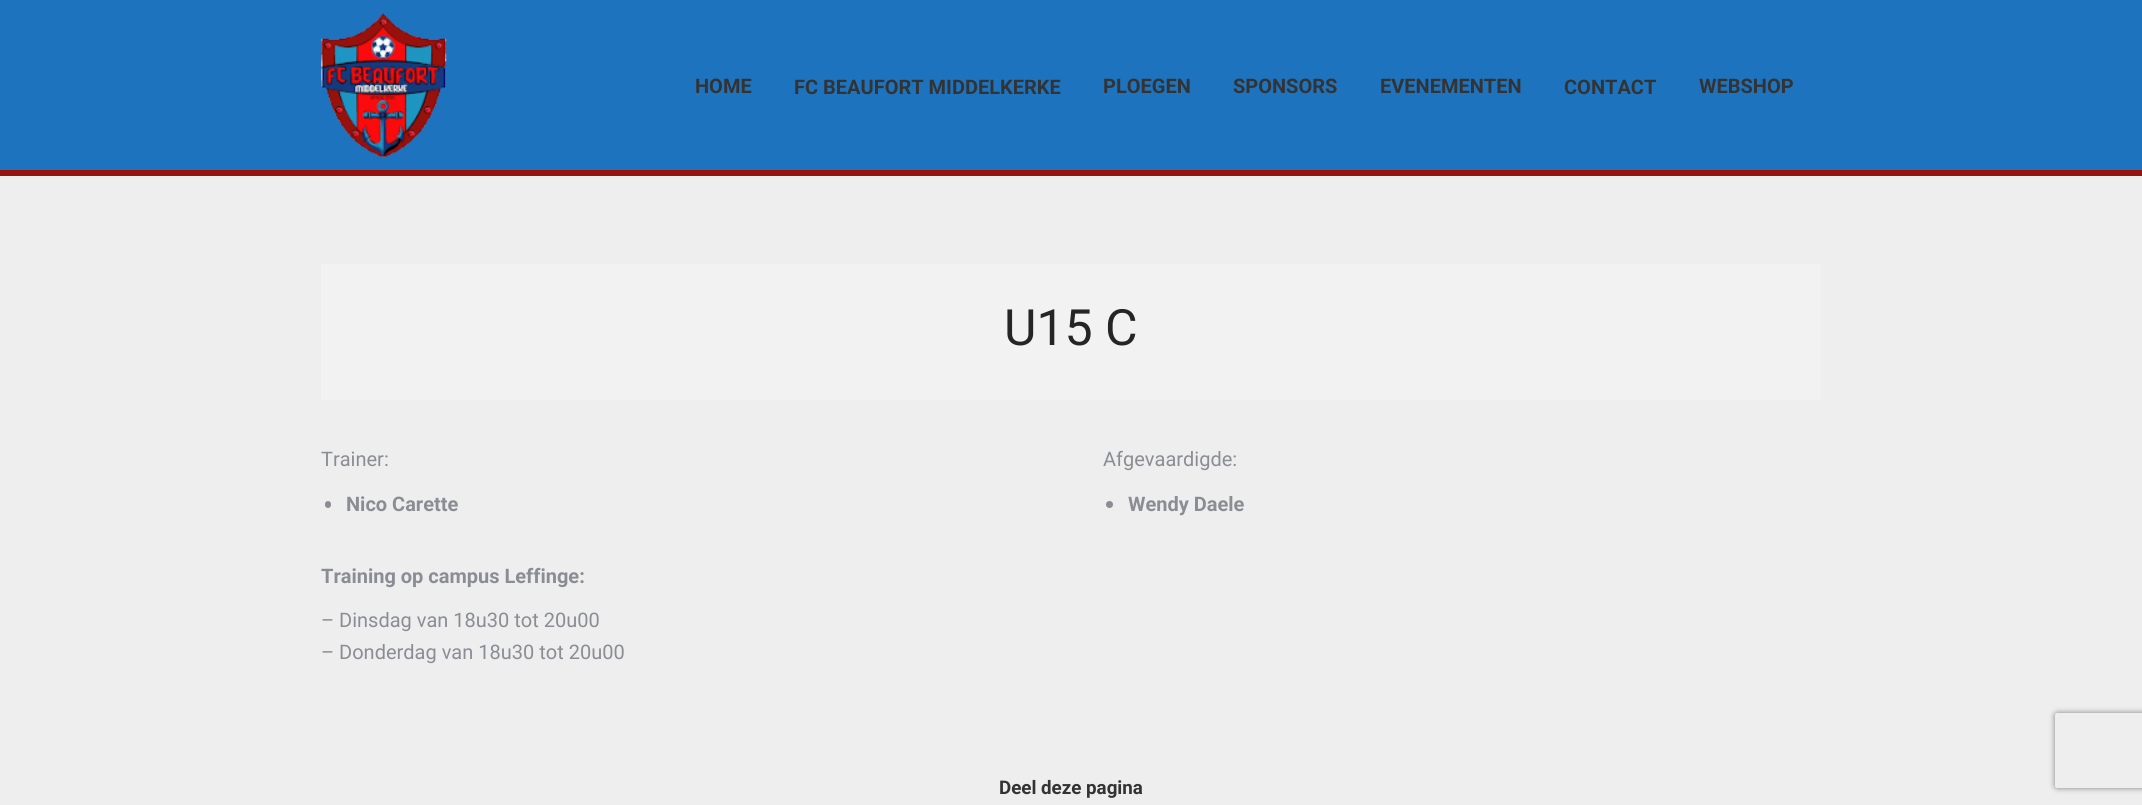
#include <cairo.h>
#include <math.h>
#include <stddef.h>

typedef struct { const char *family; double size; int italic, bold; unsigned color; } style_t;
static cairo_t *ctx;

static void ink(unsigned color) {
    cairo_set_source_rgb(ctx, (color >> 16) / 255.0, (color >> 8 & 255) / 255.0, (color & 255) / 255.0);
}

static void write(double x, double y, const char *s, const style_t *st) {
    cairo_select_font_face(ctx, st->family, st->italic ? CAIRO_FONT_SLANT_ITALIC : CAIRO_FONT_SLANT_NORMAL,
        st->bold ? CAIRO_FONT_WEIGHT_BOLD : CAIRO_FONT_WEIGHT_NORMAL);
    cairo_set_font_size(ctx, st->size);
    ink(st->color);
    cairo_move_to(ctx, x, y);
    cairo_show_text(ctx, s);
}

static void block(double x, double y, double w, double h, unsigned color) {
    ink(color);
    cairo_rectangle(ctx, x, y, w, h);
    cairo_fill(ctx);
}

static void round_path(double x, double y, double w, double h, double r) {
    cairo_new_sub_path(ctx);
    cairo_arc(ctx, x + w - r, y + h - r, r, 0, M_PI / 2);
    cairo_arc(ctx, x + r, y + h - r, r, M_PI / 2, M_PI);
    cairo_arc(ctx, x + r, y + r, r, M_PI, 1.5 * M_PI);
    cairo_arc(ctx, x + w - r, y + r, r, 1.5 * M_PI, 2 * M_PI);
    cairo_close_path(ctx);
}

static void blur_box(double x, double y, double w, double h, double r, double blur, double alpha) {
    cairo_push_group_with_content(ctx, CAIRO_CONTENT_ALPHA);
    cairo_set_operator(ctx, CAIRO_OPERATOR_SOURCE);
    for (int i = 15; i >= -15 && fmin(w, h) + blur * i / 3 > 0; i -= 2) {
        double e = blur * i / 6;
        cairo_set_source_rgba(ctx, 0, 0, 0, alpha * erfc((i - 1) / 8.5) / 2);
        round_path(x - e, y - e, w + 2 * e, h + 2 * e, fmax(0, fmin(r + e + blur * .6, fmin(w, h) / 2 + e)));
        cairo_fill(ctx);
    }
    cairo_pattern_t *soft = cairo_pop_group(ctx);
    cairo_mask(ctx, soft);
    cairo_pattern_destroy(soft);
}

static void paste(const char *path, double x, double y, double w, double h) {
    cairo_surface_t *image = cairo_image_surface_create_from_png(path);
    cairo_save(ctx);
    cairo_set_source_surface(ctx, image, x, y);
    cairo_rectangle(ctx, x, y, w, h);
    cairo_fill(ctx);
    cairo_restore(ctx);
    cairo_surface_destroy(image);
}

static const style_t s1 = {"Roboto", 20, 0, 1, 0x333333};
static const style_t s2 = {"Roboto", 50, 0, 0, 0x252525};
static const style_t s3 = {"Roboto", 20, 0, 0, 0x8b8d94};
static const style_t s4 = {"Roboto", 20, 0, 1, 0x8b8d94};
static const style_t s5 = {"Roboto", 18.75, 0, 1, 0x333333};

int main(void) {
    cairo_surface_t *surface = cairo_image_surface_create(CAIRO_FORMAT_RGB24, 2142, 805);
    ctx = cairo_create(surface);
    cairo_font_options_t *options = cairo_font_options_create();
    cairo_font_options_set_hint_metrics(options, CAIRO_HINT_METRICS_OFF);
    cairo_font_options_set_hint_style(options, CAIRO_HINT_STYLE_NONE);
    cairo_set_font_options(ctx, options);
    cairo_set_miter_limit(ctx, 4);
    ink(0xeeeeee);
    cairo_paint(ctx);
    block(0, 0, 2142, 170, 0x1e73be);
    block(0, 170, 2142, 6, 0x97120d);
    paste("pic1.png", 321, 13, 126, 145);
    write(695, 93, "HOME", &s1);
    write(794, 94, "FC BEAUFORT MIDDELKERKE", &s1);
    write(1103, 93, "PLOEGEN", &s1);
    write(1233, 93, "SPONSORS", &s1);
    write(1380, 93, "EVENEMENTEN", &s1);
    write(1564, 94, "CONTACT", &s1);
    write(1699, 93, "WEBSHOP", &s1);
    block(321, 264, 1500, 136, 0xf2f2f2);
    write(1004, 345, "U15 C", &s2);
    write(321, 466, "Trainer:", &s3);
    round_path(325, 501, 6, 7, 3);
    cairo_fill(ctx);
    write(346, 511, "Nico Carette", &s4);
    write(1103, 466, "Afgevaardigde:", &s3);
    cairo_new_path(ctx);
    cairo_arc(ctx, 1109.5, 504.5, 3.5, 0, 2 * M_PI);
    cairo_fill(ctx);
    write(1128, 511, "Wendy Daele", &s4);
    write(321, 583, "Training op campus Leffinge:", &s4);
    write(321, 627, "– Dinsdag van 18u30 tot 20u00", &s3);
    write(321, 659, "– Donderdag van 18u30 tot 20u00", &s3);
    write(999, 794, "Deel deze pagina", &s5);
    cairo_save(ctx);
    cairo_set_fill_rule(ctx, CAIRO_FILL_RULE_EVEN_ODD);
    cairo_new_path(ctx);
    cairo_move_to(ctx, 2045, 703);
    cairo_line_to(ctx, 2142, 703);
    cairo_line_to(ctx, 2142, 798);
    cairo_line_to(ctx, 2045, 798);
    cairo_close_path(ctx);
    cairo_move_to(ctx, 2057.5, 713);
    cairo_line_to(ctx, 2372.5, 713);
    cairo_curve_to(ctx, 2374, 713, 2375, 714, 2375, 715.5);
    cairo_line_to(ctx, 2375, 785.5);
    cairo_curve_to(ctx, 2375, 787, 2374, 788, 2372.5, 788);
    cairo_line_to(ctx, 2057.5, 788);
    cairo_curve_to(ctx, 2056, 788, 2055, 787, 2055, 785.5);
    cairo_line_to(ctx, 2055, 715.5);
    cairo_curve_to(ctx, 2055, 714, 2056, 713, 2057.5, 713);
    cairo_close_path(ctx);
    cairo_clip(ctx);
    ink(0x808080);
    blur_box(2055, 713, 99, 75, 2.5, 3, 1);
    cairo_restore(ctx);
    cairo_surface_write_to_png(surface, "screenshot.png");
    cairo_font_options_destroy(options);
    cairo_destroy(ctx);
    cairo_surface_destroy(surface);
    return 0;
}
